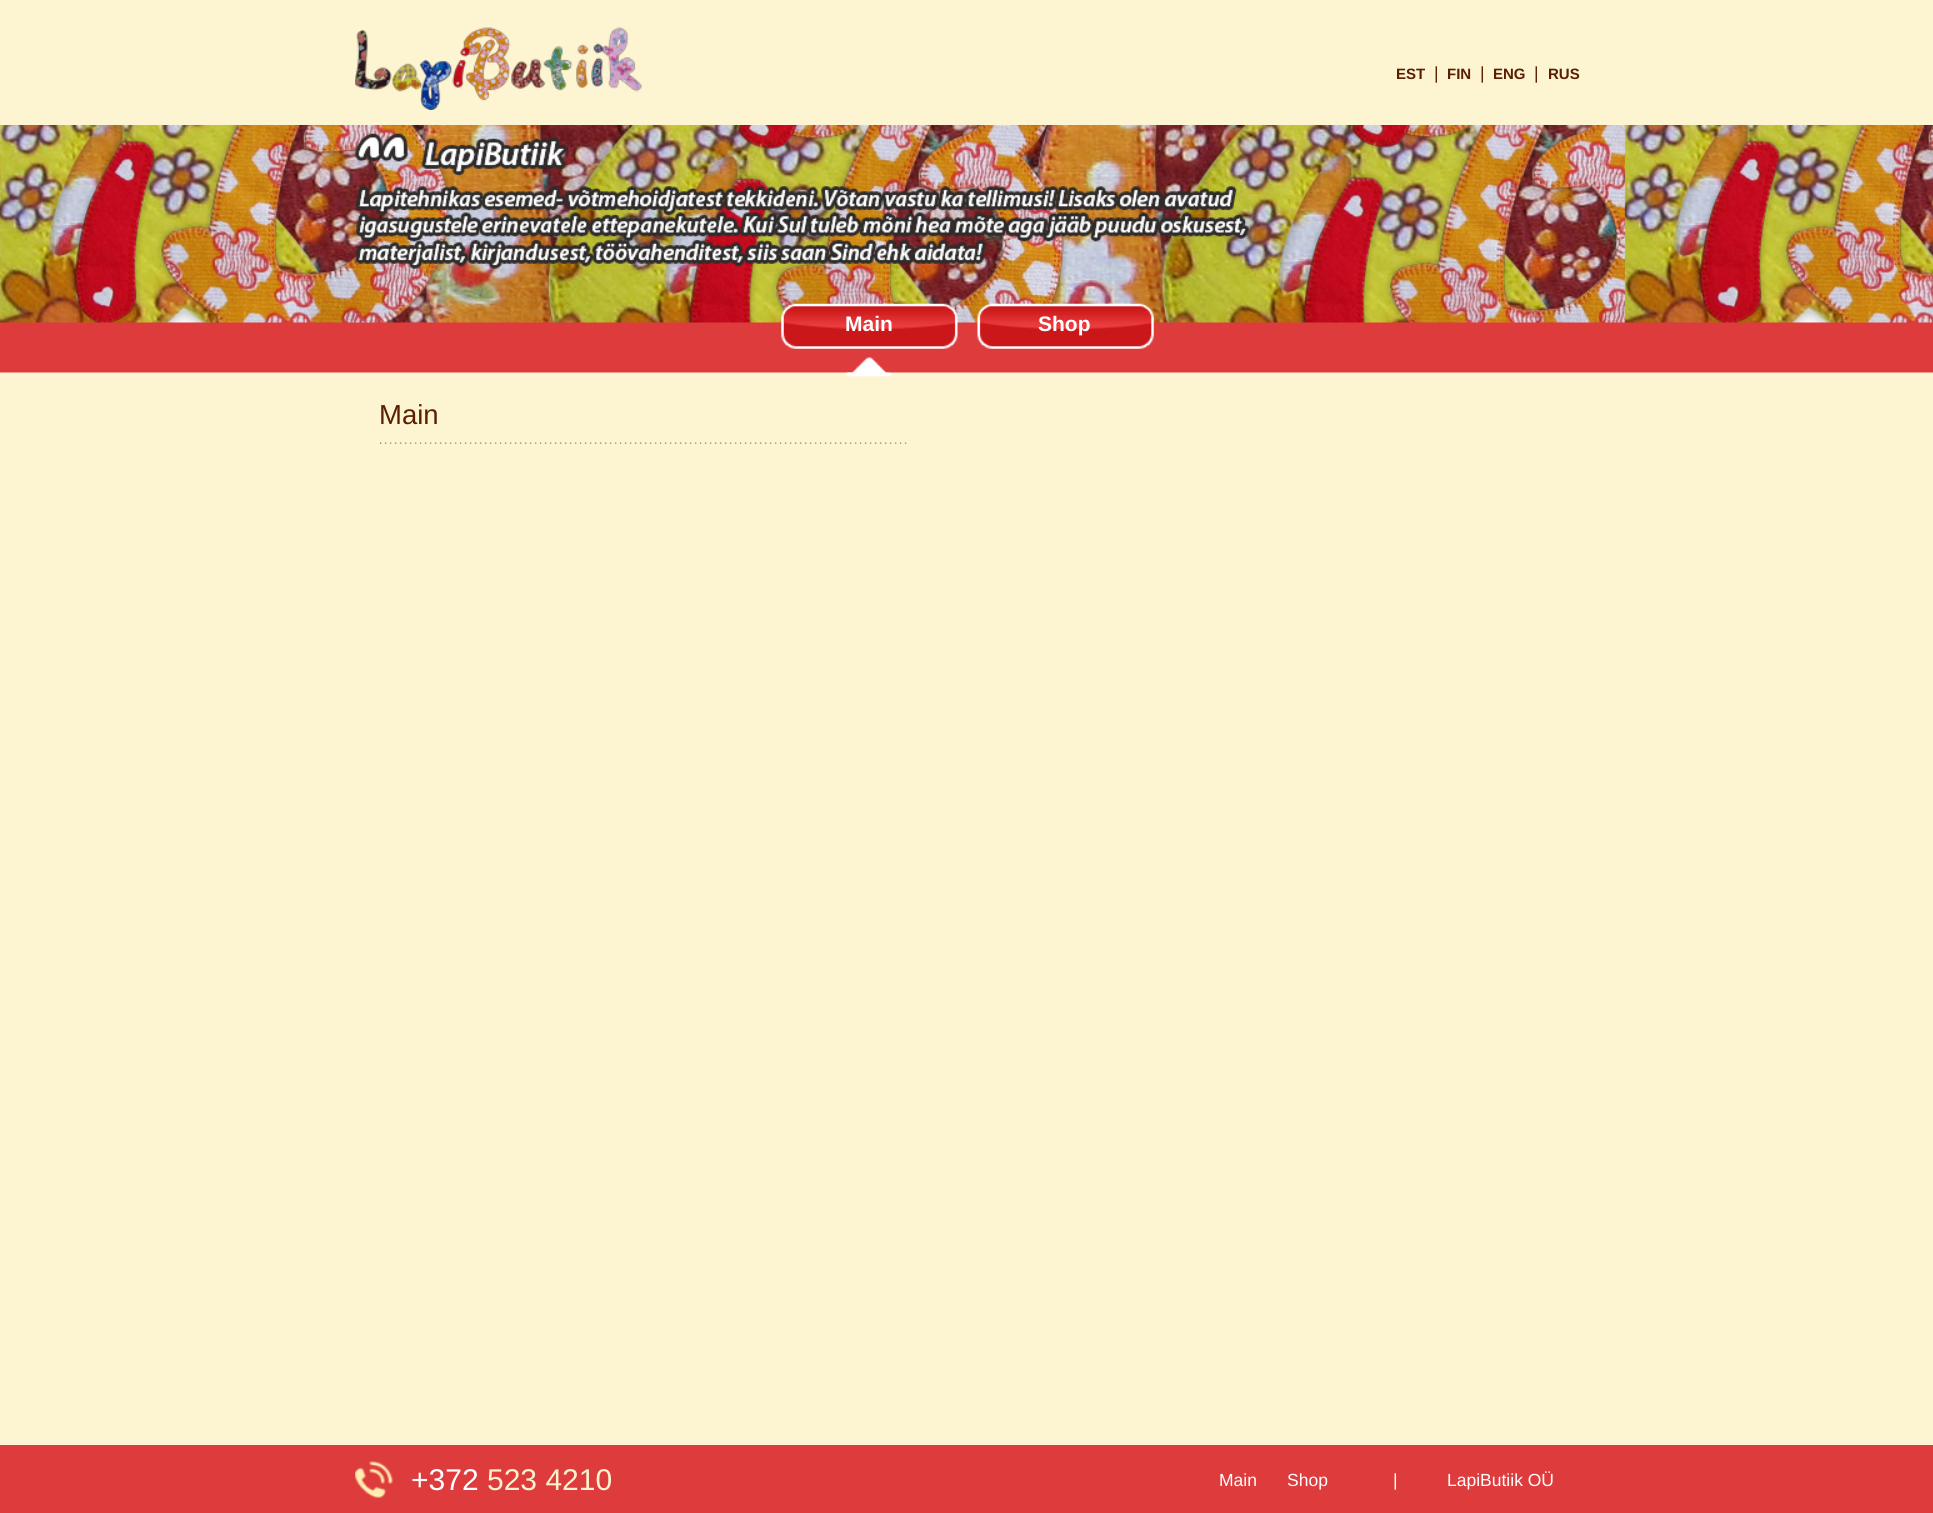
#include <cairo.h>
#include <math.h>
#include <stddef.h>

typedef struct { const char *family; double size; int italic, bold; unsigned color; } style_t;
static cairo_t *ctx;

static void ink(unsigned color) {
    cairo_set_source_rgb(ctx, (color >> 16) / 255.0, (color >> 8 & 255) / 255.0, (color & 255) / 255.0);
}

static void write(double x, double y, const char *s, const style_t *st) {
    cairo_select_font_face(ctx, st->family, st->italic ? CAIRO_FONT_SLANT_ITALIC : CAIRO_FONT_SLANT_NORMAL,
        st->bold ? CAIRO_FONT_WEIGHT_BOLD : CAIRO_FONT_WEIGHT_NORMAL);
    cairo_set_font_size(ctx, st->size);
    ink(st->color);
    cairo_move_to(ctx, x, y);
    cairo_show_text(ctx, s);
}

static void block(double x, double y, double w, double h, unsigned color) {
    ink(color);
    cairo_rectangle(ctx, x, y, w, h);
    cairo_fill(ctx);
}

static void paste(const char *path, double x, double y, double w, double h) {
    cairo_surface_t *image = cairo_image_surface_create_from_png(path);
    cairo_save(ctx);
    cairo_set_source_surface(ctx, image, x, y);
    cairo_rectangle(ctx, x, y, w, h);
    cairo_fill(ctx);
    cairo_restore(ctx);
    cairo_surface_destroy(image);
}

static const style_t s1 = {"Liberation Sans", 15, 0, 1, 0x5a1f00};
static const style_t s2 = {"Liberation Sans", 17.5, 0, 0, 0x5a1f00};
static const style_t s3 = {"Liberation Sans", 21, 0, 1, 0xffffff};
static const style_t s4 = {"Liberation Sans", 27.5, 0, 0, 0x5a1f00};
static const style_t s5 = {"Liberation Sans", 30, 0, 0, 0xffffff};
static const style_t s6 = {"Liberation Sans", 30, 0, 0, 0xfdf3cf};
static const style_t s7 = {"Liberation Sans", 17.5, 0, 0, 0xffffff};

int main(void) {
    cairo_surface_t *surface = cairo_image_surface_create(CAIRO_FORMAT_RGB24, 1933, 1513);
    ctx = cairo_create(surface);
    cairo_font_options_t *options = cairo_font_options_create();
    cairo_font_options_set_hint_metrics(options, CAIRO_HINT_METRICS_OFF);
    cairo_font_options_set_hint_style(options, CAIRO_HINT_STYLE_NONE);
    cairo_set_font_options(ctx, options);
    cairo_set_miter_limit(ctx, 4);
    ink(0xfdf4d2);
    cairo_paint(ctx);
    paste("pic1.png", 0, 125, 1933, 248);
    paste("pic2.png", 355, 27, 288, 83);
    write(1396, 79, "EST", &s1);
    write(1434, 79, "|", &s2);
    write(1447, 79, "FIN", &s1);
    write(1480, 79, "|", &s2);
    write(1493, 79, "ENG", &s1);
    write(1534, 79, "|", &s2);
    write(1548, 79, "RUS", &s1);
    paste("pic3.png", 355, 133, 895, 136);
    paste("pic4.png", 781, 303, 177, 46);
    write(845, 331, "Main", &s3);
    paste("pic5.png", 845, 357, 48, 20);
    paste("pic6.png", 977, 303, 177, 46);
    write(1038, 331, "Shop", &s3);
    write(379, 424, "Main", &s4);
    paste("pic7.png", 380, 442, 527, 2);
    block(0, 1445, 1933, 68, 0xde3b3d);
    paste("pic8.png", 355, 1461, 38, 37);
    write(411, 1490, "+372", &s5);
    write(487, 1490, "523 4210", &s6);
    write(1219, 1486, "Main", &s7);
    write(1287, 1486, "Shop", &s7);
    write(1393, 1486, "|", &s7);
    write(1447, 1486, "LapiButiik OÜ", &s7);
    cairo_surface_write_to_png(surface, "screenshot.png");
    cairo_font_options_destroy(options);
    cairo_destroy(ctx);
    cairo_surface_destroy(surface);
    return 0;
}
